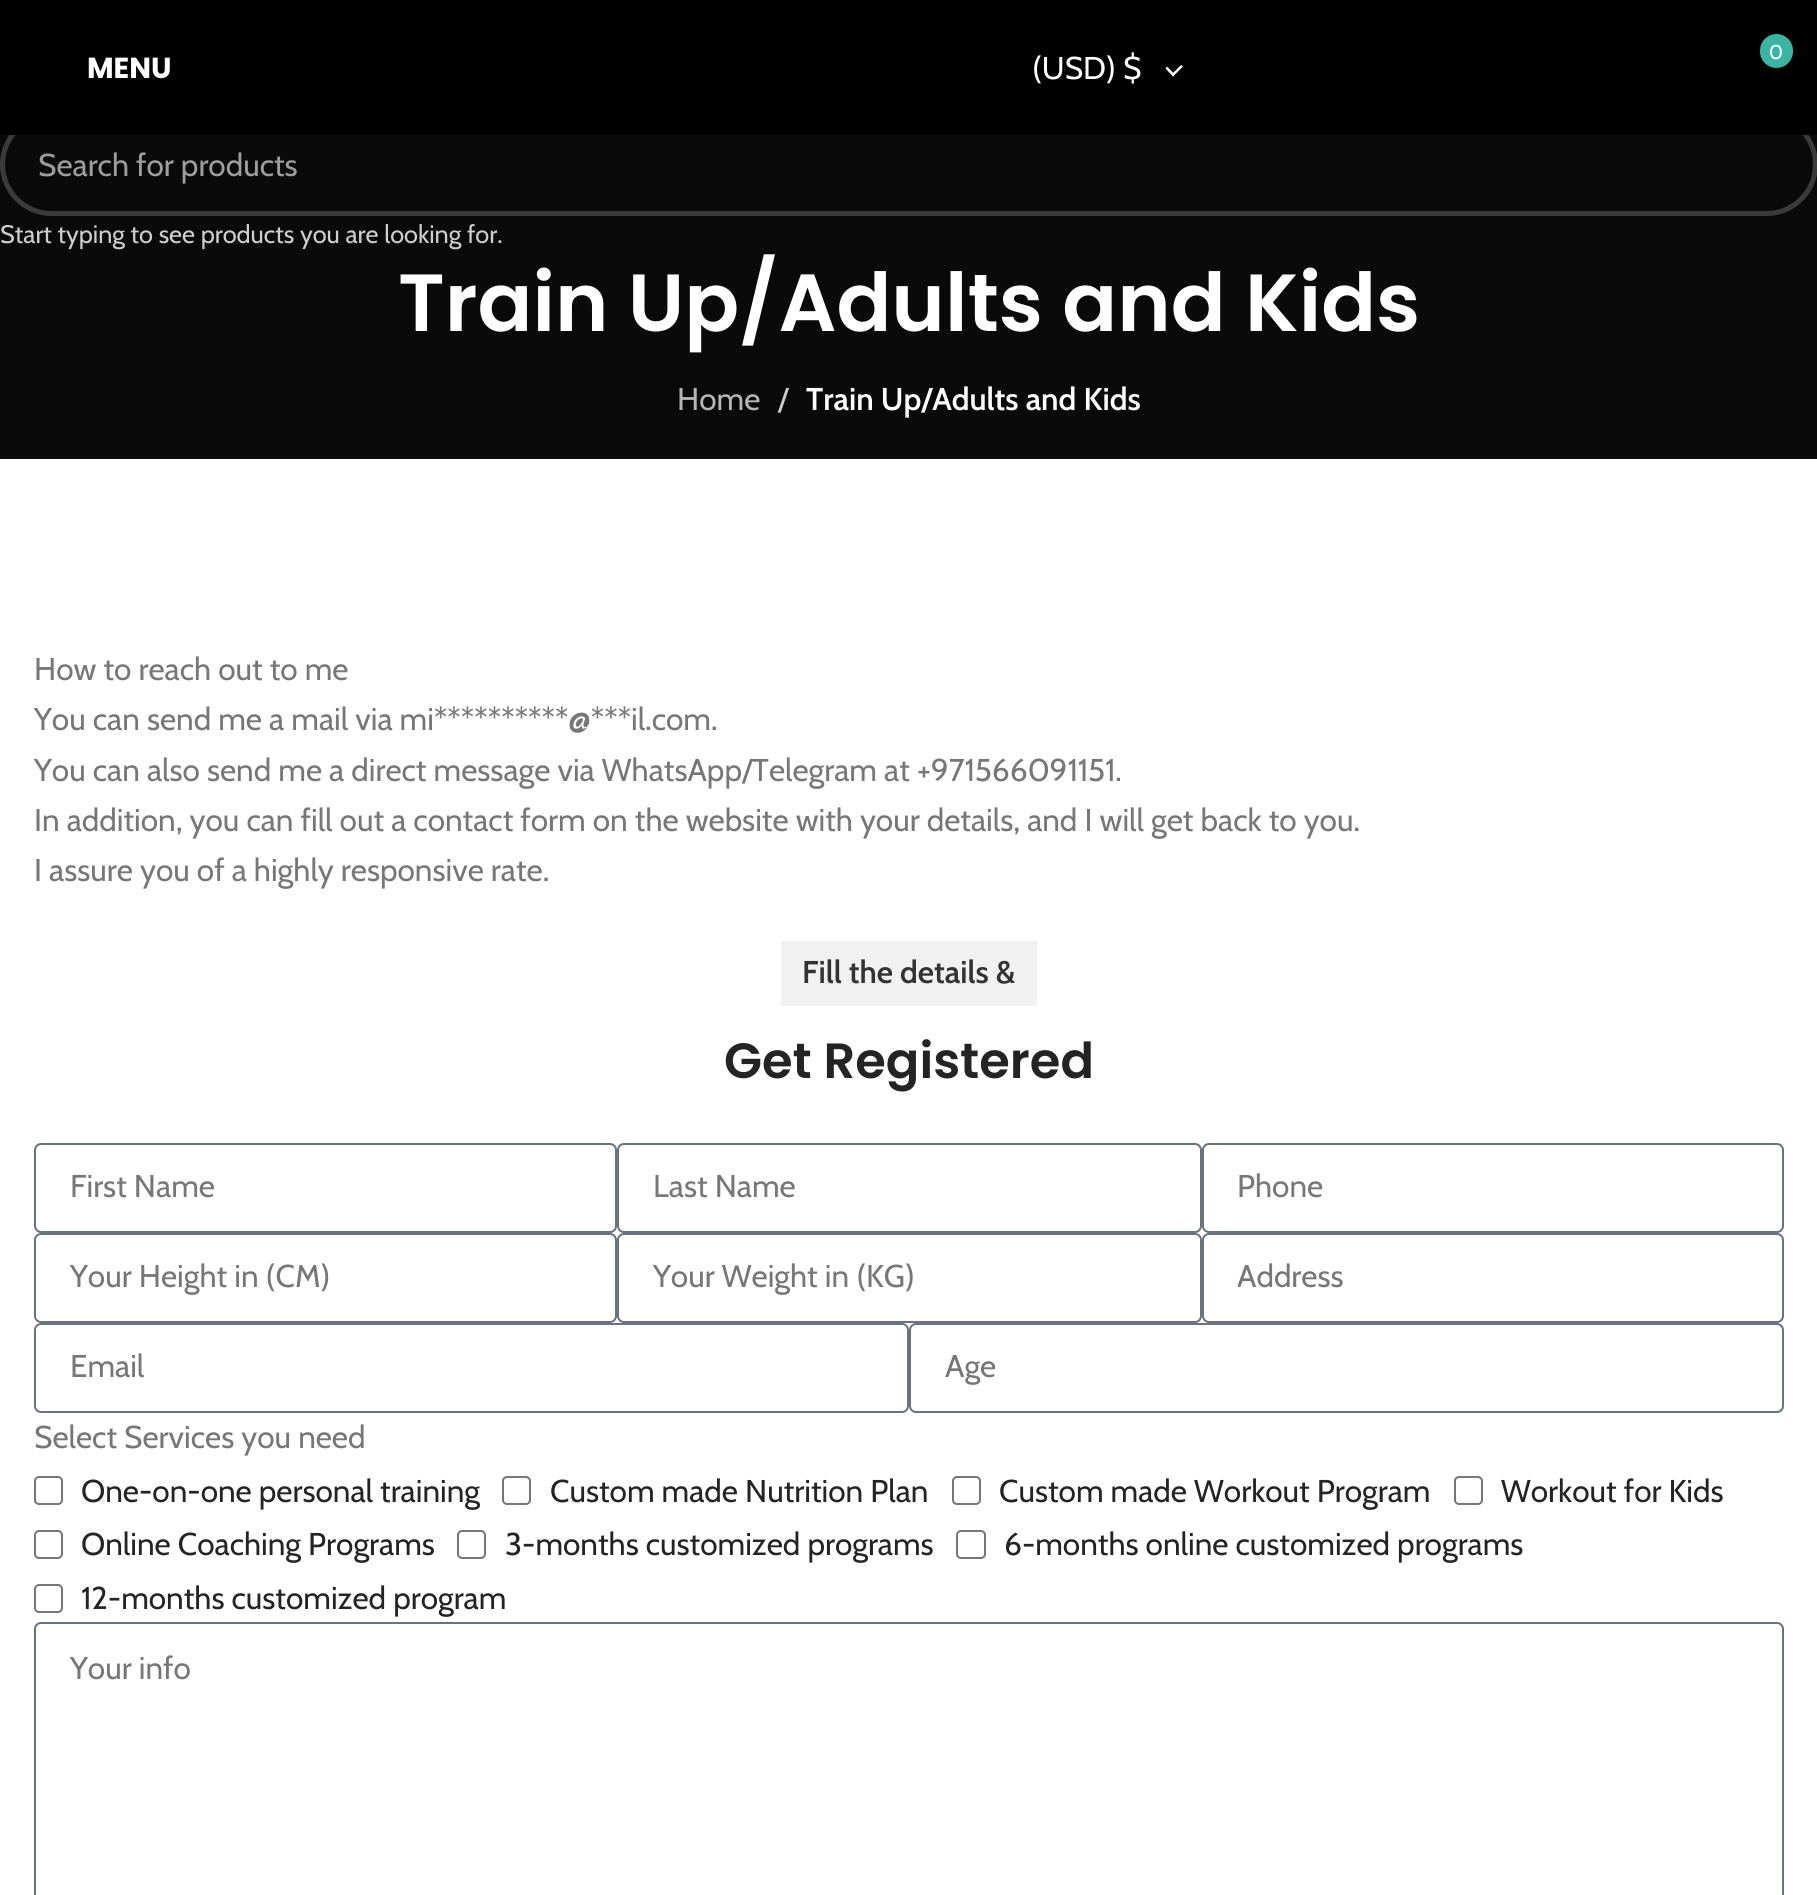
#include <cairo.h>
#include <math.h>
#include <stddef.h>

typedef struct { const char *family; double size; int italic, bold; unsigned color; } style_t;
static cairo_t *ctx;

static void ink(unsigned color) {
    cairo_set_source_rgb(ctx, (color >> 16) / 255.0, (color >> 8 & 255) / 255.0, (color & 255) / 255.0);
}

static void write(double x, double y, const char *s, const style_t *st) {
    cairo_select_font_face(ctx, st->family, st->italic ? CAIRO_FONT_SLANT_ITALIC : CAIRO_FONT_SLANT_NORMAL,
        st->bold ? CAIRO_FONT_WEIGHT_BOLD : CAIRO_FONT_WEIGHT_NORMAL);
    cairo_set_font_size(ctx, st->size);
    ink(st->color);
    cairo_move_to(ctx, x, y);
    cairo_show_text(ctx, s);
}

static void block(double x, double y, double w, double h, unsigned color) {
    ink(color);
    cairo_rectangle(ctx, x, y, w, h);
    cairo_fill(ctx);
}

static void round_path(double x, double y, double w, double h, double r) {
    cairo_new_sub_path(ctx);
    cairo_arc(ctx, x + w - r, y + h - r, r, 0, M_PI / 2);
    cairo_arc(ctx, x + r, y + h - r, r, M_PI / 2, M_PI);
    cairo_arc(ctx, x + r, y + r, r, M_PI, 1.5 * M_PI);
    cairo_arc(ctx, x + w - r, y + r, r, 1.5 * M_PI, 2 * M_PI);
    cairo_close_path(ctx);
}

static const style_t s1 = {"Poppins", 29, 0, 1, 0xffffff};
static const style_t s2 = {"Cabin", 31.5, 0, 0, 0xffffff};
static const style_t s3 = {"Cabin", 20, 0, 0, 0xffffff};
static const style_t s4 = {"Poppins SemiBold", 81, 0, 0, 0xffffff};
static const style_t s5 = {"Cabin", 31.5, 0, 0, 0xb6b6b6};
static const style_t s6 = {"Cabin", 31.5, 0, 0, 0xcecece};
static const style_t s7 = {"Cabin SemiBold", 31.5, 0, 0, 0xffffff};
static const style_t s8 = {"Cabin", 31.5, 0, 0, 0x777777};
static const style_t s9 = {"Cabin SemiBold", 31.5, 0, 0, 0x333333};
static const style_t s10 = {"Poppins SemiBold", 49.5, 0, 0, 0x242424};
static const style_t s11 = {"Cabin", 31.5, 0, 0, 0x242424};
static const style_t s12 = {"Cabin", 31.5, 0, 0, 0x9d9d9d};
static const style_t s13 = {"Cabin", 25.25, 0, 0, 0xcecece};

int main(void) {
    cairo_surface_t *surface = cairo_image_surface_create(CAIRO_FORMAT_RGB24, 1817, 1895);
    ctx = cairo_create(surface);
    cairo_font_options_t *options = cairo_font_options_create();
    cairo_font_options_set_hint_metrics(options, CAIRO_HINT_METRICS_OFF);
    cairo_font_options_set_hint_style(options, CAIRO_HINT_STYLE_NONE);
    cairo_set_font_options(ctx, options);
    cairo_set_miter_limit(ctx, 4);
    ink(0xffffff);
    cairo_paint(ctx);
    block(0, 135, 1817, 324, 0x0a0a0a);
    round_path(2.5, 115.5, 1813, 98, 49);
    ink(0x3b3b3b);
    cairo_set_line_width(ctx, 5);
    cairo_stroke(ctx);
    block(0, 0, 1817, 135, 0x000000);
    write(87, 78, "MENU", &s1);
    write(1032, 79, "(USD) $", &s2);
    cairo_new_path(ctx);
    cairo_move_to(ctx, 1181, 65);
    cairo_line_to(ctx, 1183, 66.5);
    cairo_line_to(ctx, 1173, 76.5);
    cairo_line_to(ctx, 1171.5, 74.5);
    cairo_close_path(ctx);
    cairo_fill(ctx);
    cairo_new_path(ctx);
    cairo_move_to(ctx, 1167, 66.5);
    cairo_line_to(ctx, 1175, 74.5);
    cairo_line_to(ctx, 1173, 76.5);
    cairo_line_to(ctx, 1165.5, 68.5);
    cairo_close_path(ctx);
    cairo_fill(ctx);
    ink(0x3cb4a4);
    round_path(1760, 34, 33, 34, 16.5);
    cairo_fill(ctx);
    write(1769, 59, "0", &s3);
    write(398, 331, "Train Up/Adults and Kids", &s4);
    write(677, 410, "Home", &s5);
    write(778, 410, "/", &s6);
    write(806, 410, "Train Up/Adults and Kids", &s7);
    write(34, 680, "How to reach out to me", &s8);
    write(34, 730, "You can send me a mail via mi**********", &s8);
    write(568, 730, "@***", &s8);
    write(631, 730, "il.com", &s8);
    write(711, 730, ".", &s8);
    write(34, 781, "You can also send me a direct message via WhatsApp/Telegram at +971566091151.", &s8);
    write(34, 831, "In addition, you can fill out a contact form on the website with your details, and I will get back to you.", &s8);
    write(34, 881, "I assure you of a highly responsive rate.", &s8);
    block(781, 941, 256, 65, 0xf1f1f1);
    write(802, 983, "Fill the details &", &s9);
    write(724, 1078, "Get Registered", &s10);
    round_path(35, 1144, 581, 88, 6);
    ink(0x69727d);
    cairo_set_line_width(ctx, 2);
    cairo_stroke(ctx);
    write(70, 1197, "First Name", &s8);
    round_path(618, 1144, 583, 88, 6);
    ink(0x69727d);
    cairo_stroke(ctx);
    write(653, 1197, "Last Name", &s8);
    round_path(1203, 1144, 580, 88, 6);
    ink(0x69727d);
    cairo_stroke(ctx);
    write(1237, 1197, "Phone", &s8);
    round_path(35, 1234, 581, 88, 6);
    ink(0x69727d);
    cairo_stroke(ctx);
    write(70, 1287, "Your Height in (CM)", &s8);
    round_path(618, 1234, 583, 88, 6);
    ink(0x69727d);
    cairo_stroke(ctx);
    write(653, 1287, "Your Weight in (KG)", &s8);
    round_path(1203, 1234, 580, 88, 6);
    ink(0x69727d);
    cairo_stroke(ctx);
    cairo_save(ctx);
    cairo_rectangle(ctx, 1238, 1256, 510, 40);
    cairo_clip(ctx);
    write(1237, 1287, "Address", &s8);
    cairo_restore(ctx);
    round_path(35, 1324, 873, 88, 6);
    cairo_stroke(ctx);
    write(70, 1377, "Email", &s8);
    round_path(910, 1324, 873, 88, 6);
    ink(0x69727d);
    cairo_stroke(ctx);
    write(945, 1377, "Age", &s8);
    write(34, 1448, "Select Services you need", &s8);
    round_path(35, 1477, 27, 27, 4);
    ink(0x767676);
    cairo_stroke(ctx);
    write(81, 1502, "One-on-one personal training", &s11);
    round_path(503, 1477, 27, 27, 4);
    ink(0x767676);
    cairo_stroke(ctx);
    write(550, 1502, "Custom made Nutrition Plan", &s11);
    round_path(953, 1477, 27, 27, 4);
    ink(0x767676);
    cairo_stroke(ctx);
    write(999, 1502, "Custom made Workout Program", &s11);
    round_path(1455, 1477, 27, 27, 4);
    ink(0x767676);
    cairo_stroke(ctx);
    write(1501, 1502, "Workout for Kids", &s11);
    round_path(35, 1531, 27, 27, 4);
    ink(0x767676);
    cairo_stroke(ctx);
    write(81, 1555, "Online Coaching Programs", &s11);
    round_path(458, 1531, 27, 27, 4);
    ink(0x767676);
    cairo_stroke(ctx);
    write(505, 1555, "3-months customized programs", &s11);
    round_path(957, 1531, 28, 27, 4);
    ink(0x767676);
    cairo_stroke(ctx);
    write(1004, 1555, "6-months online customized programs", &s11);
    round_path(35, 1585, 27, 27, 4);
    ink(0x767676);
    cairo_stroke(ctx);
    write(81, 1609, "12-months customized program", &s11);
    round_path(35, 1623, 1748, 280, 6);
    ink(0x69727d);
    cairo_stroke(ctx);
    write(70, 1679, "Your info", &s8);
    write(38, 176, "Search for products", &s12);
    write(0, 243, "Start typing to see products you are looking for.", &s13);
    cairo_surface_write_to_png(surface, "screenshot.png");
    cairo_font_options_destroy(options);
    cairo_destroy(ctx);
    cairo_surface_destroy(surface);
    return 0;
}
